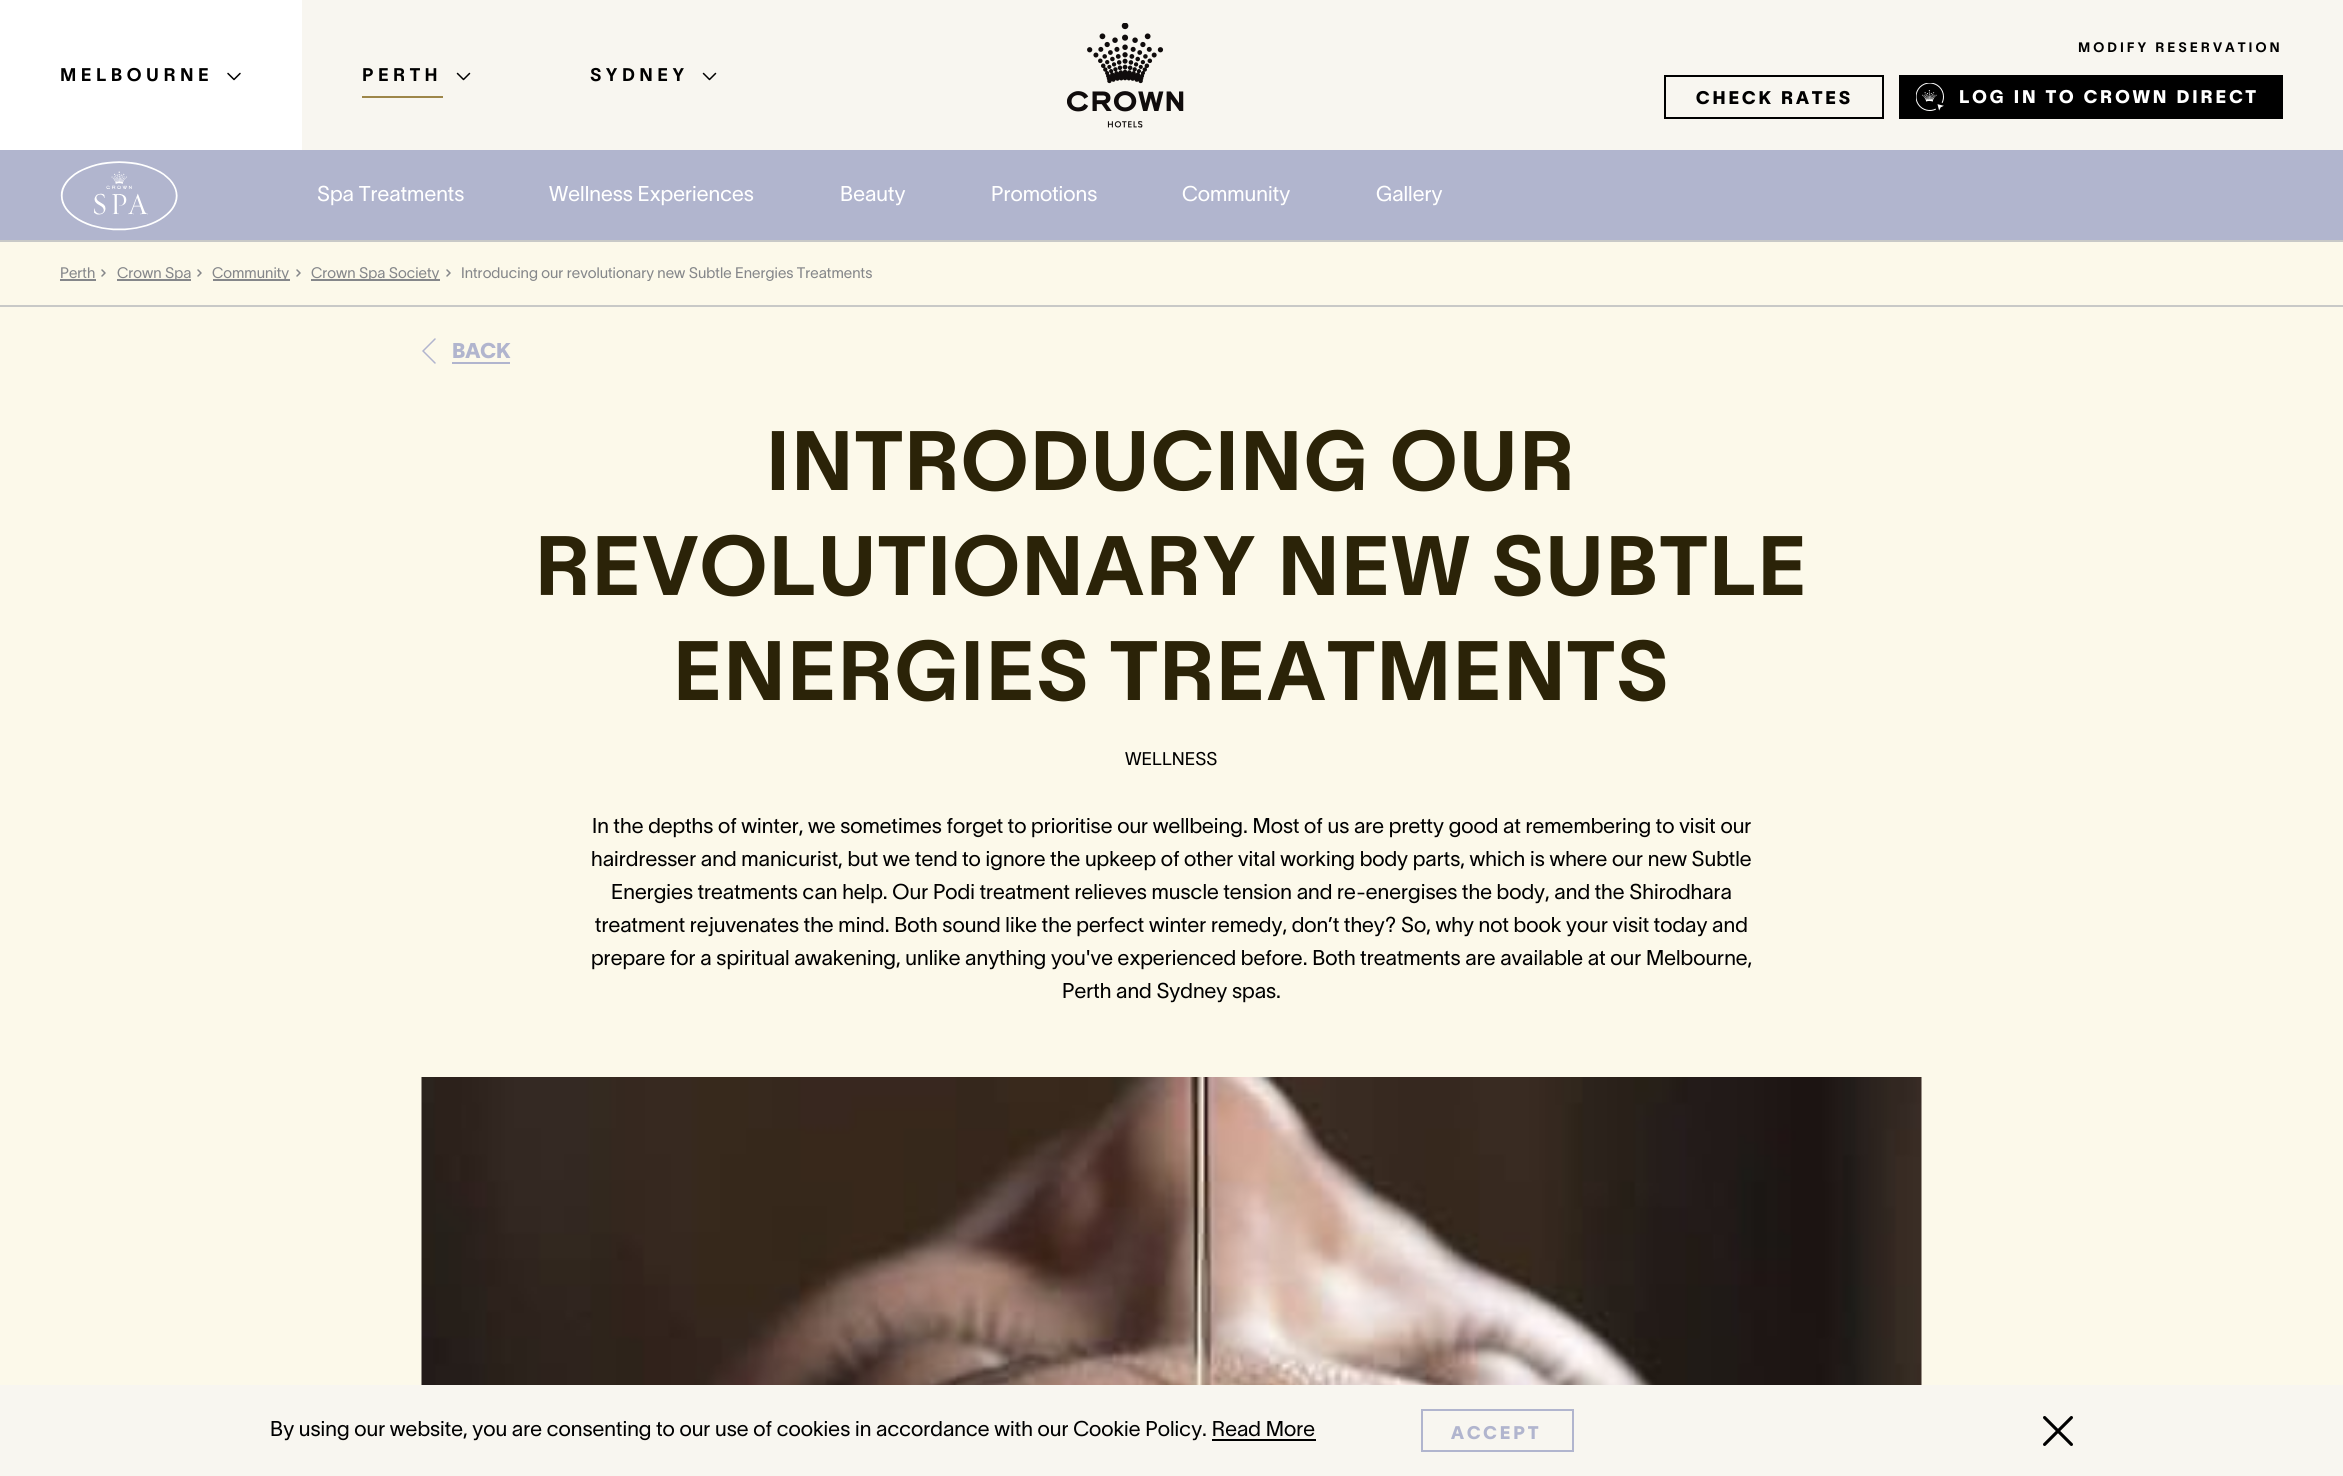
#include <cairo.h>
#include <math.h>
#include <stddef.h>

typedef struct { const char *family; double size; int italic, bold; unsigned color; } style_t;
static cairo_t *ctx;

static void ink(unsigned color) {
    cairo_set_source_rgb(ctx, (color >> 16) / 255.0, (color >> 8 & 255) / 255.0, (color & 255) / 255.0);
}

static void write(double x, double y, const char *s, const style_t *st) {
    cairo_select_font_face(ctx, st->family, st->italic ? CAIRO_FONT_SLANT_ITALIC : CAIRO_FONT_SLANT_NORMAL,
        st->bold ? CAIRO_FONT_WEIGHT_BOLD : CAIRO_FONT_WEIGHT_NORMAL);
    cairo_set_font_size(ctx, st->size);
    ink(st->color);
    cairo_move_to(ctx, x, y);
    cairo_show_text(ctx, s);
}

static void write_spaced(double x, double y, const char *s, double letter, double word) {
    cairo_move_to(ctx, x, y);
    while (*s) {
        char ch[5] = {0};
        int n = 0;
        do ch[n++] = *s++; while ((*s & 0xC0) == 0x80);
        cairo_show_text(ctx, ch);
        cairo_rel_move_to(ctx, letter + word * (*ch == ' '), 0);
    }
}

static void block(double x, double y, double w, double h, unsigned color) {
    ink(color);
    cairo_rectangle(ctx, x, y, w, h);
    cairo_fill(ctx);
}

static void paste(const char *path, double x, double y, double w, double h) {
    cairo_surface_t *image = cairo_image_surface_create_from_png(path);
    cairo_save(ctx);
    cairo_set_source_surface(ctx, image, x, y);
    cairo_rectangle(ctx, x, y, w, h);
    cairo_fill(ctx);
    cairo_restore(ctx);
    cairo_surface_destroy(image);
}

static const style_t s1 = {"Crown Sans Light", 21, 0, 0, 0xffffff};
static const style_t s2 = {"Crown Sans Light", 15, 0, 0, 0x85878a};
static const style_t s3 = {"Crown Sans", 21, 0, 1, 0xb1b5ce};
static const style_t s4 = {"Crown Sans Light", 18, 0, 0, 0x000000};
static const style_t s5 = {"Crown Sans Light", 21, 0, 0, 0x000000};

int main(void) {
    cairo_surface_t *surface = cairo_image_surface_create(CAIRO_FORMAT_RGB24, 2343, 1476);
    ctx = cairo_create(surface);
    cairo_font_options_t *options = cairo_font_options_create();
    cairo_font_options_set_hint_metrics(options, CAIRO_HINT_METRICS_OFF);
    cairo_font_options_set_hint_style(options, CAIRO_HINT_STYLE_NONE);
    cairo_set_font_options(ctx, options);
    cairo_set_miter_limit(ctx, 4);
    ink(0xfcf9ea);
    cairo_paint(ctx);
    block(302, 0, 2041, 150, 0xf8f6f0);
    block(0, 0, 302, 150, 0xffffff);
    cairo_select_font_face(ctx, "Crown Sans Medium", CAIRO_FONT_SLANT_NORMAL, CAIRO_FONT_WEIGHT_NORMAL);
    cairo_set_font_size(ctx, 18);
    ink(0x000000);
    write_spaced(60, 81, "MELBOURNE", 4.5, 0);
    cairo_new_path(ctx);
    cairo_move_to(ctx, 228, 73.5);
    cairo_line_to(ctx, 234, 79.5);
    cairo_line_to(ctx, 240, 73.5);
    cairo_set_line_width(ctx, 1.5);
    cairo_set_line_cap(ctx, CAIRO_LINE_CAP_ROUND);
    cairo_set_line_join(ctx, CAIRO_LINE_JOIN_ROUND);
    cairo_stroke(ctx);
    write_spaced(362, 81, "PERTH", 4.5, 0);
    block(362, 96, 81, 2, 0x9d8649);
    cairo_new_path(ctx);
    cairo_move_to(ctx, 457.5, 73.5);
    cairo_line_to(ctx, 463.5, 79.5);
    cairo_line_to(ctx, 469.5, 73.5);
    ink(0x000000);
    cairo_stroke(ctx);
    write_spaced(590, 81, "SYDNEY", 4.5, 0);
    cairo_new_path(ctx);
    cairo_move_to(ctx, 703.5, 73.5);
    cairo_line_to(ctx, 709.5, 79.5);
    cairo_line_to(ctx, 715.5, 73.5);
    cairo_stroke(ctx);
    paste("pic1.png", 1067, 23, 117, 105);
    cairo_set_font_size(ctx, 13.5);
    write_spaced(2078, 52, "MODIFY RESERVATION", 3, 0);
    cairo_rectangle(ctx, 1665, 76, 218, 42);
    cairo_set_line_width(ctx, 2);
    cairo_set_line_cap(ctx, CAIRO_LINE_CAP_BUTT);
    cairo_set_line_join(ctx, CAIRO_LINE_JOIN_MITER);
    cairo_stroke(ctx);
    cairo_select_font_face(ctx, "Crown Sans", CAIRO_FONT_SLANT_NORMAL, CAIRO_FONT_WEIGHT_BOLD);
    cairo_set_font_size(ctx, 18);
    write_spaced(1696, 104, "CHECK RATES", 3, 0);
    block(1899, 75, 384, 44, 0x000000);
    paste("pic2.png", 1916, 83, 28, 28);
    ink(0xffffff);
    write_spaced(1959, 103, "LOG IN TO CROWN DIRECT", 3, 0);
    block(0, 150, 2343, 90, 0xb1b5ce);
    paste("pic3.png", 60, 161, 118, 70);
    write(317, 201, "Spa Treatments", &s1);
    write(549, 201, "Wellness Experiences", &s1);
    write(840, 201, "Beauty", &s1);
    write(991, 201, "Promotions", &s1);
    write(1182, 201, "Community", &s1);
    write(1376, 201, "Gallery", &s1);
    block(0, 240, 2343, 2, 0xc8c9c7);
    block(0, 305, 2343, 2, 0xc8c9c7);
    write(60, 278, "Perth", &s2);
    block(60, 279, 36, 2, 0x85878a);
    cairo_new_path(ctx);
    cairo_move_to(ctx, 102, 276);
    cairo_line_to(ctx, 105, 273);
    cairo_line_to(ctx, 102, 270);
    cairo_set_line_width(ctx, 1.5);
    cairo_set_line_cap(ctx, CAIRO_LINE_CAP_ROUND);
    cairo_set_line_join(ctx, CAIRO_LINE_JOIN_ROUND);
    cairo_stroke(ctx);
    block(117, 279, 74, 2, 0x85878a);
    write(117, 278, "Crown Spa", &s2);
    cairo_new_path(ctx);
    cairo_move_to(ctx, 198, 276);
    cairo_line_to(ctx, 201, 273);
    cairo_line_to(ctx, 198, 270);
    cairo_stroke(ctx);
    block(213, 279, 77, 2, 0x85878a);
    write(212, 278, "Community", &s2);
    cairo_new_path(ctx);
    cairo_move_to(ctx, 297, 276);
    cairo_line_to(ctx, 300, 273);
    cairo_line_to(ctx, 297, 270);
    cairo_stroke(ctx);
    block(311, 279, 129, 2, 0x85878a);
    write(311, 278, "Crown Spa Society", &s2);
    cairo_new_path(ctx);
    cairo_move_to(ctx, 447, 276);
    cairo_line_to(ctx, 450, 273);
    cairo_line_to(ctx, 447, 270);
    cairo_stroke(ctx);
    write(461, 278, "Introducing our revolutionary new Subtle Energies Treatments", &s2);
    cairo_new_path(ctx);
    cairo_move_to(ctx, 435, 339);
    cairo_line_to(ctx, 423, 351);
    cairo_line_to(ctx, 435, 363);
    ink(0xb1b5ce);
    cairo_stroke(ctx);
    write(452, 358, "BACK", &s3);
    block(452, 362, 58, 2, 0xb1b5ce);
    cairo_select_font_face(ctx, "Crown Sans Medium", CAIRO_FONT_SLANT_NORMAL, CAIRO_FONT_WEIGHT_NORMAL);
    cairo_set_font_size(ctx, 82.5);
    ink(0x2b2308);
    write_spaced(766, 490, "INTRODUCING OUR", 1.5, 0);
    write_spaced(535, 595, "REVOLUTIONARY NEW SUBTLE", 1.5, 0);
    write_spaced(673, 700, "ENERGIES TREATMENTS", 1.5, 0);
    write(1125, 765, "WELLNESS", &s4);
    write(592, 833, "In the depths of winter, we sometimes forget to prioritise our wellbeing. Most of us are pretty good at remembering to visit our", &s5);
    write(591, 866, "hairdresser and manicurist, but we tend to ignore the upkeep of other vital working body parts, which is where our new Subtle", &s5);
    write(611, 899, "Energies treatments can help. Our Podi treatment relieves muscle tension and re-energises the body, and the Shirodhara", &s5);
    write(595, 932, "treatment rejuvenates the mind. Both sound like the perfect winter remedy, don’t they? So, why not book your visit today and", &s5);
    write(591, 965, "prepare for a spiritual awakening, unlike anything you've experienced before. Both treatments are available at our Melbourne,", &s5);
    write(1062, 998, "Perth and Sydney spas.", &s5);
    paste("pic4.png", 421, 1077, 1501, 308);
    block(0, 1385, 2343, 91, 0xf8f6f0);
    write(270, 1436, "By using our website, you are consenting to our use of cookies in accordance with our Cookie Policy. Read More", &s5);
    block(1212, 1439, 104, 2, 0x000000);
    cairo_rectangle(ctx, 1422, 1410, 151, 41);
    ink(0xb1b5ce);
    cairo_set_line_width(ctx, 2);
    cairo_set_line_cap(ctx, CAIRO_LINE_CAP_BUTT);
    cairo_set_line_join(ctx, CAIRO_LINE_JOIN_MITER);
    cairo_stroke(ctx);
    cairo_select_font_face(ctx, "Crown Sans", CAIRO_FONT_SLANT_NORMAL, CAIRO_FONT_WEIGHT_BOLD);
    cairo_set_font_size(ctx, 18);
    write_spaced(1451, 1439, "ACCEPT", 3, 0);
    paste("pic5.png", 2043, 1416, 30, 30);
    cairo_surface_write_to_png(surface, "screenshot.png");
    cairo_font_options_destroy(options);
    cairo_destroy(ctx);
    cairo_surface_destroy(surface);
    return 0;
}
